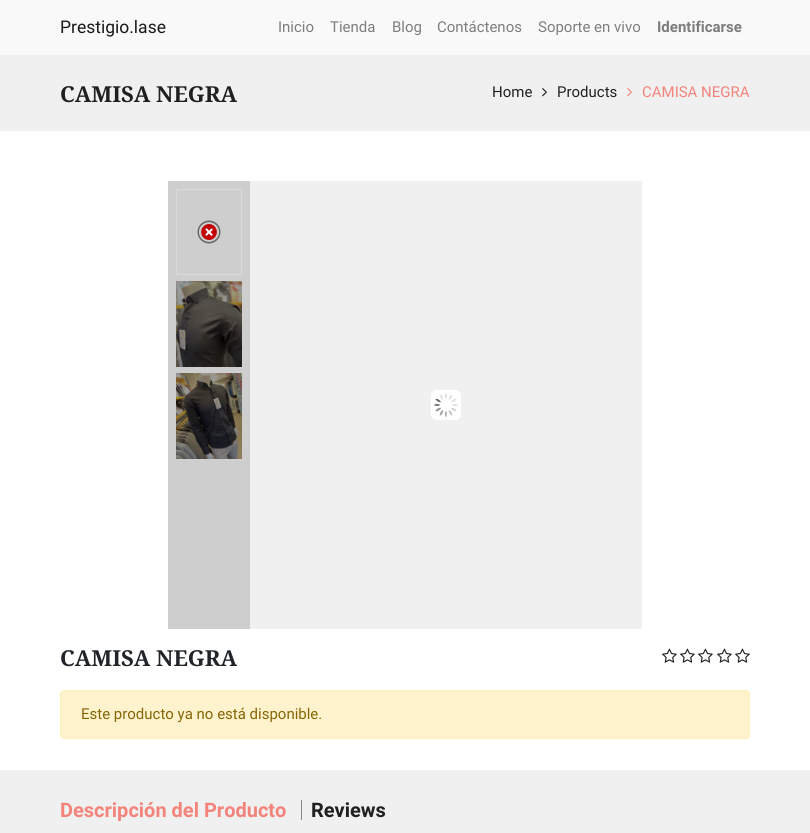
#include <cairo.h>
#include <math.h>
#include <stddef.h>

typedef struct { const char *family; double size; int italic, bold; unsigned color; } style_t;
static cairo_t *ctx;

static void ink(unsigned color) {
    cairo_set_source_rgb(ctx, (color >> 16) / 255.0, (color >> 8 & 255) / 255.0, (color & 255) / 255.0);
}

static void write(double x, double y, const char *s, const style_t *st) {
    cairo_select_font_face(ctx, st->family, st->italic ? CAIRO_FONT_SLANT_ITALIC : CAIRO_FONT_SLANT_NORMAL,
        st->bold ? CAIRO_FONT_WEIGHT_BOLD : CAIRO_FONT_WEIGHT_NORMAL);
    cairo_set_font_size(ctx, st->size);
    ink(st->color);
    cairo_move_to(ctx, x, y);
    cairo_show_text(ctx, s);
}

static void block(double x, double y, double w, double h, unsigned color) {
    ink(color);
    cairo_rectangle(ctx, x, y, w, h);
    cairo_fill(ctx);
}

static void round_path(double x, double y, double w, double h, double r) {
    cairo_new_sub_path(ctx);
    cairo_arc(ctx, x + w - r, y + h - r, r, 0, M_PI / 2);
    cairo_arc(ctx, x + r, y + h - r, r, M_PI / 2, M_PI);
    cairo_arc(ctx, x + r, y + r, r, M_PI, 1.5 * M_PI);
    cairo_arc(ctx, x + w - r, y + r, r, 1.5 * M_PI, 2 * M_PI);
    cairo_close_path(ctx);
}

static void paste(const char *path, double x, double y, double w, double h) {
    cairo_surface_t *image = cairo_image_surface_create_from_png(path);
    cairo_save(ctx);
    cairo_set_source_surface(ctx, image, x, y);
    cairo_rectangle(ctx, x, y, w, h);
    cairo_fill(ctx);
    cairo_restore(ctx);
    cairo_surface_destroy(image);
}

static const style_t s1 = {"Roboto", 17.5, 0, 0, 0x191919};
static const style_t s2 = {"Roboto", 15, 0, 0, 0x7d7d7d};
static const style_t s3 = {"Roboto", 15, 0, 1, 0x7d7d7d};
static const style_t s4 = {"Noto Serif", 22, 0, 1, 0x202020};
static const style_t s5 = {"Roboto", 15, 0, 0, 0x202020};
static const style_t s6 = {"Roboto", 15, 0, 0, 0xf3847c};
static const style_t s7 = {"Noto Serif", 22, 0, 1, 0x212529};
static const style_t s8 = {"Roboto", 15, 0, 0, 0x856404};
static const style_t s9 = {"Roboto", 20, 0, 1, 0xf3847c};
static const style_t s10 = {"Roboto", 20, 0, 1, 0x202020};

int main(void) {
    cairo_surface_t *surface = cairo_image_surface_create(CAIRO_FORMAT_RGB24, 810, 833);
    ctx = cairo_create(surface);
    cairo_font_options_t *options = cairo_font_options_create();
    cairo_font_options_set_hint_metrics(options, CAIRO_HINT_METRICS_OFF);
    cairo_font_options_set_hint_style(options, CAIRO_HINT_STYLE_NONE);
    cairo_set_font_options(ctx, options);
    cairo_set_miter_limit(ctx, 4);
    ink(0xffffff);
    cairo_paint(ctx);
    block(0, 0, 810, 55, 0xf9f9f9);
    write(60, 33, "Prestigio.lase", &s1);
    write(278, 32, "Inicio", &s2);
    write(330, 32, "Tienda", &s2);
    write(392, 32, "Blog", &s2);
    write(437, 32, "Contáctenos", &s2);
    write(538, 32, "Soporte en vivo", &s2);
    write(657, 32, "Identificarse", &s3);
    block(0, 55, 810, 76, 0xf0f0f0);
    write(60, 102, "CAMISA NEGRA", &s4);
    write(492, 97, "Home", &s5);
    paste("pic1.png", 542, 88, 5, 9);
    write(557, 97, "Products", &s5);
    paste("pic2.png", 627, 88, 5, 9);
    write(642, 97, "CAMISA NEGRA", &s6);
    block(168, 181, 82, 448, 0xcecece);
    paste("pic3.png", 197, 220, 24, 24);
    cairo_rectangle(ctx, 176.5, 189.5, 65, 85);
    ink(0xd9d9d9);
    cairo_set_line_width(ctx, 1);
    cairo_stroke(ctx);
    paste("pic4.png", 176, 281, 66, 86);
    paste("pic5.png", 176, 373, 66, 86);
    block(250, 181, 392, 448, 0xf0f0f0);
    ink(0xffffff);
    round_path(431, 390, 30, 30, 6);
    cairo_fill(ctx);
    paste("pic6.png", 434, 393, 24, 24);
    round_path(432, 391, 28, 28, 5);
    cairo_set_line_width(ctx, 2);
    cairo_stroke(ctx);
    write(60, 666, "CAMISA NEGRA", &s7);
    paste("pic7.png", 662, 648, 15, 15);
    paste("pic7.png", 680, 648, 15, 15);
    paste("pic7.png", 698, 648, 15, 15);
    paste("pic7.png", 717, 648, 15, 15);
    paste("pic7.png", 735, 648, 15, 15);
    ink(0xfff3cd);
    round_path(60.5, 690.5, 689, 48, 3.5);
    cairo_fill_preserve(ctx);
    ink(0xffeeba);
    cairo_set_line_width(ctx, 1);
    cairo_stroke(ctx);
    write(81, 719, "Este producto ya no está disponible.", &s8);
    block(0, 770, 810, 63, 0xf0f0f0);
    write(60, 817, "Descripción del Producto", &s9);
    block(301, 800, 1, 20, 0x868686);
    write(311, 817, "Reviews", &s10);
    cairo_surface_write_to_png(surface, "screenshot.png");
    cairo_font_options_destroy(options);
    cairo_destroy(ctx);
    cairo_surface_destroy(surface);
    return 0;
}
